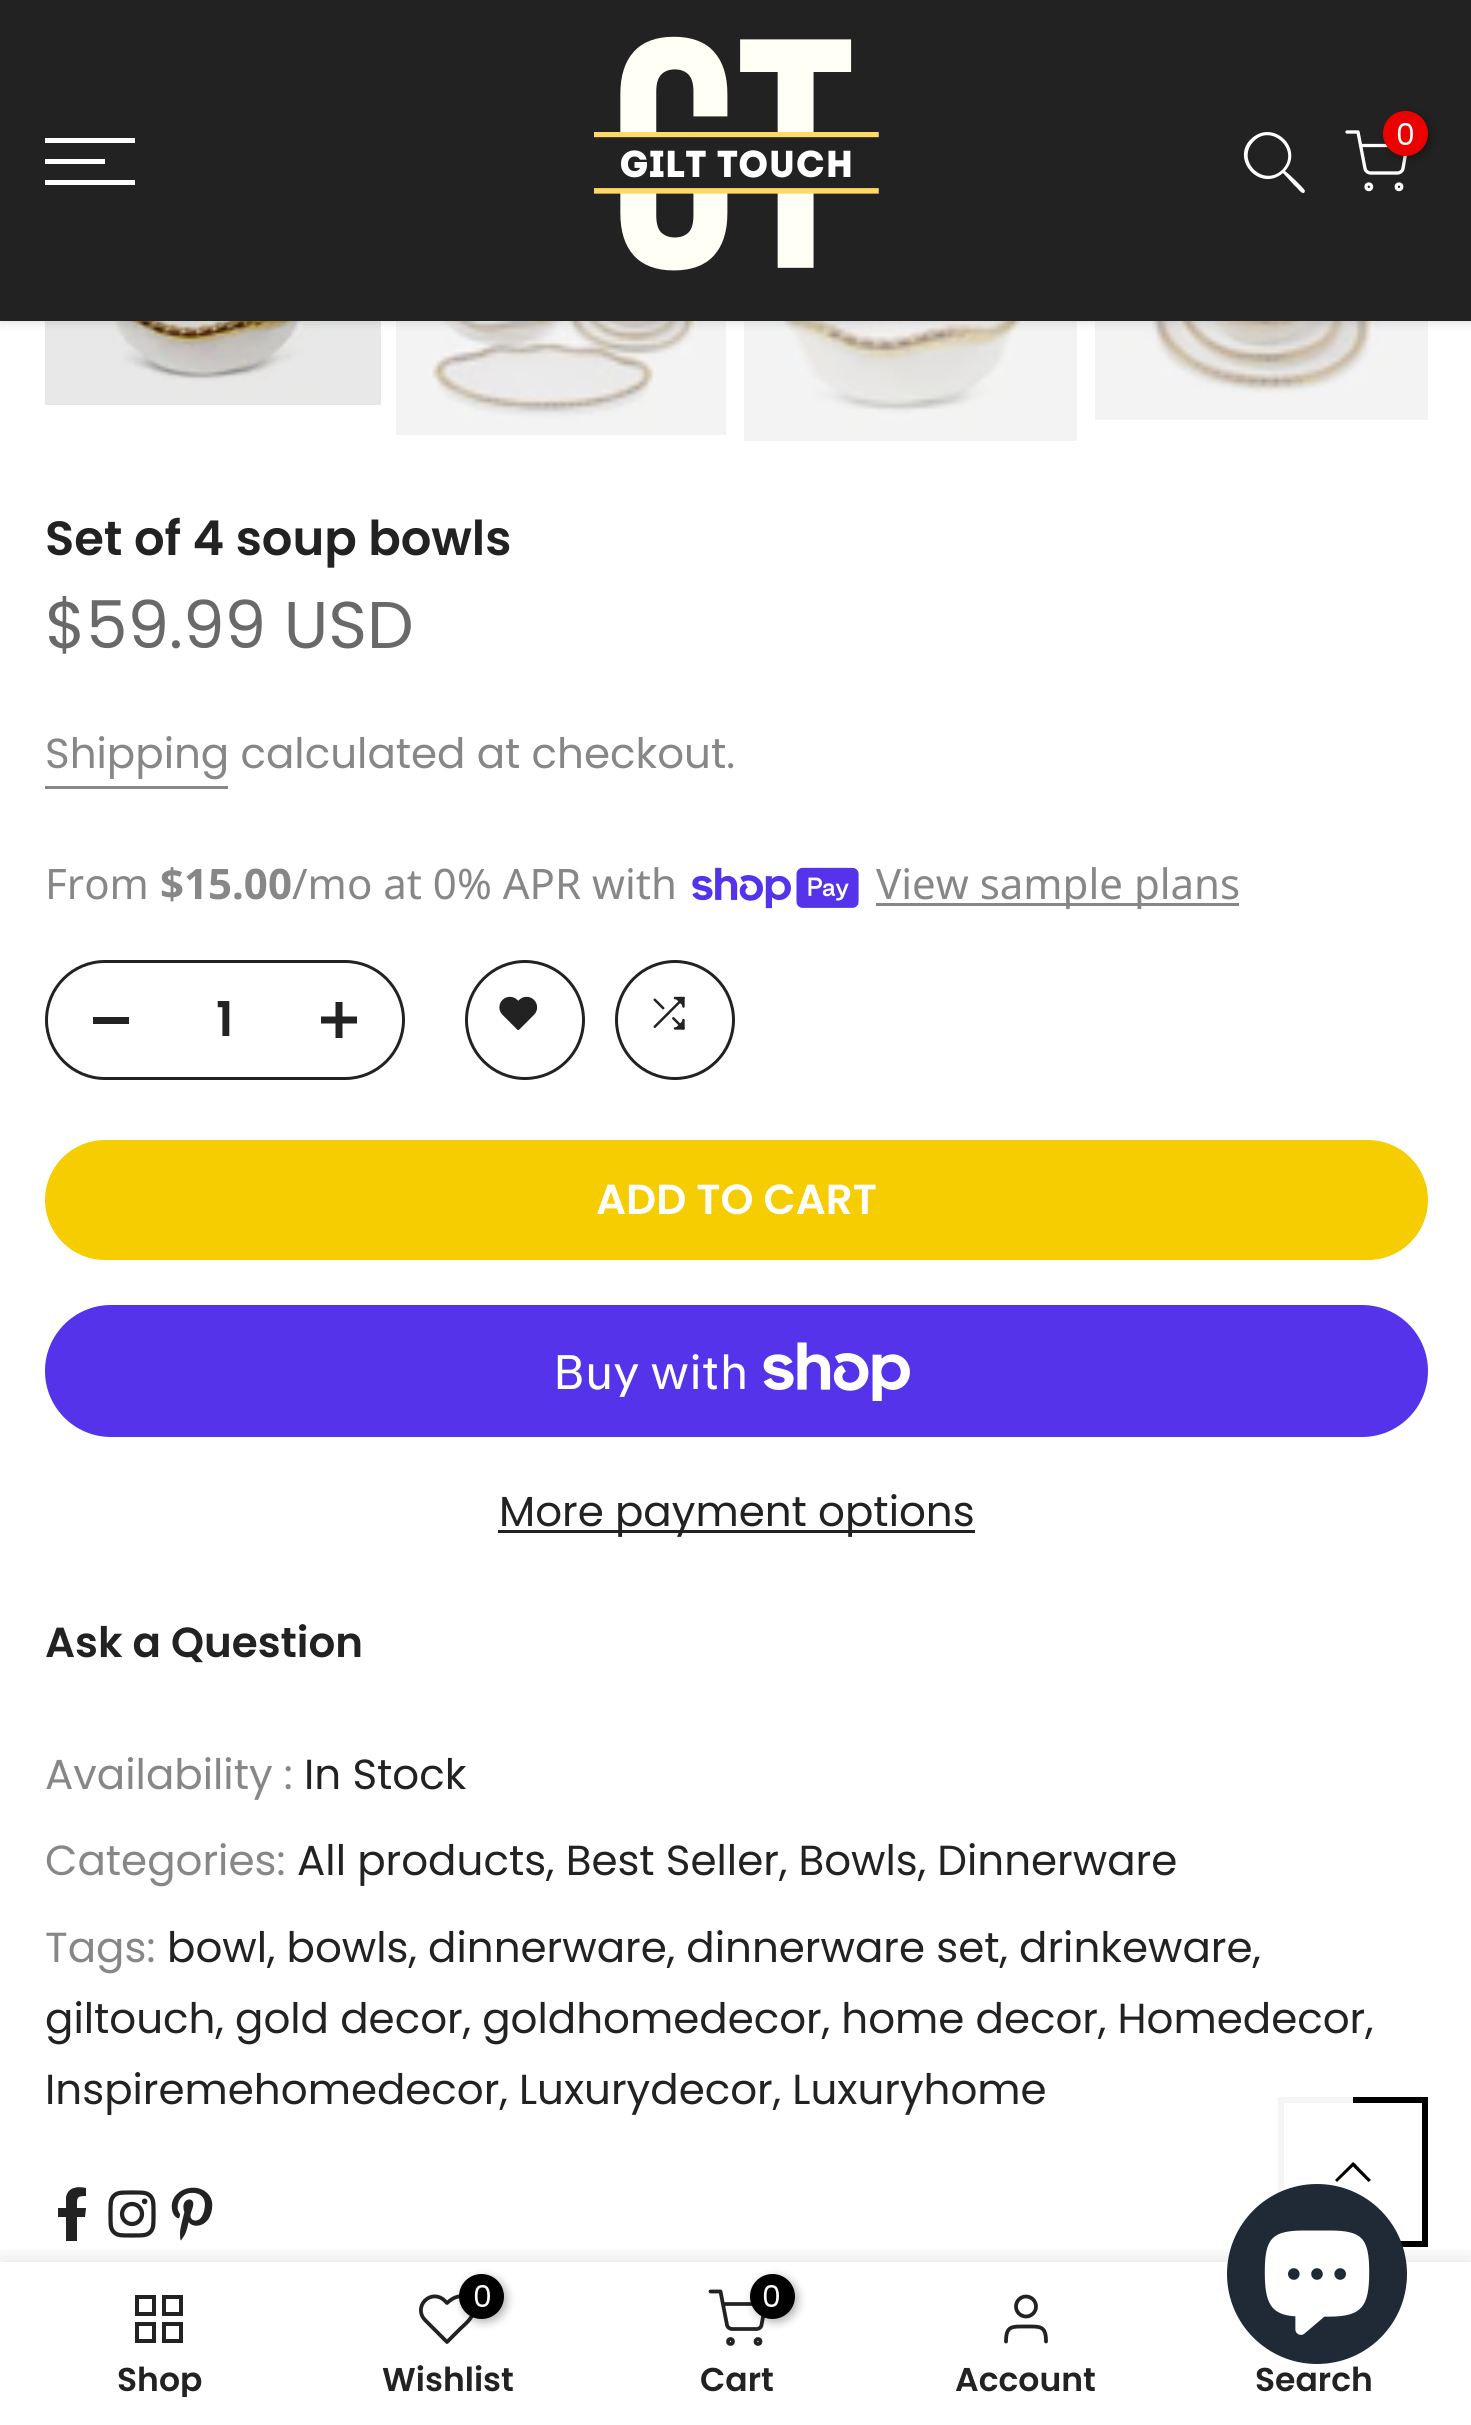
#include <cairo.h>
#include <math.h>
#include <stddef.h>

typedef struct { const char *family; double size; int italic, bold; unsigned color; } style_t;
static cairo_t *ctx;

static void ink(unsigned color) {
    cairo_set_source_rgb(ctx, (color >> 16) / 255.0, (color >> 8 & 255) / 255.0, (color & 255) / 255.0);
}

static void write(double x, double y, const char *s, const style_t *st) {
    cairo_select_font_face(ctx, st->family, st->italic ? CAIRO_FONT_SLANT_ITALIC : CAIRO_FONT_SLANT_NORMAL,
        st->bold ? CAIRO_FONT_WEIGHT_BOLD : CAIRO_FONT_WEIGHT_NORMAL);
    cairo_set_font_size(ctx, st->size);
    ink(st->color);
    cairo_move_to(ctx, x, y);
    cairo_show_text(ctx, s);
}

static void block(double x, double y, double w, double h, unsigned color) {
    ink(color);
    cairo_rectangle(ctx, x, y, w, h);
    cairo_fill(ctx);
}

static void round_path(double x, double y, double w, double h, double r) {
    cairo_new_sub_path(ctx);
    cairo_arc(ctx, x + w - r, y + h - r, r, 0, M_PI / 2);
    cairo_arc(ctx, x + r, y + h - r, r, M_PI / 2, M_PI);
    cairo_arc(ctx, x + r, y + r, r, M_PI, 1.5 * M_PI);
    cairo_arc(ctx, x + w - r, y + r, r, 1.5 * M_PI, 2 * M_PI);
    cairo_close_path(ctx);
}

static void blur_box(double x, double y, double w, double h, double r, double blur, double alpha) {
    cairo_push_group_with_content(ctx, CAIRO_CONTENT_ALPHA);
    cairo_set_operator(ctx, CAIRO_OPERATOR_SOURCE);
    for (int i = 15; i >= -15 && fmin(w, h) + blur * i / 3 > 0; i -= 2) {
        double e = blur * i / 6;
        cairo_set_source_rgba(ctx, 0, 0, 0, alpha * erfc((i - 1) / 8.5) / 2);
        round_path(x - e, y - e, w + 2 * e, h + 2 * e, fmax(0, fmin(r + e + blur * .6, fmin(w, h) / 2 + e)));
        cairo_fill(ctx);
    }
    cairo_pattern_t *soft = cairo_pop_group(ctx);
    cairo_mask(ctx, soft);
    cairo_pattern_destroy(soft);
}

static void paste(const char *path, double x, double y, double w, double h) {
    cairo_surface_t *image = cairo_image_surface_create_from_png(path);
    cairo_save(ctx);
    cairo_set_source_surface(ctx, image, x, y);
    cairo_rectangle(ctx, x, y, w, h);
    cairo_fill(ctx);
    cairo_restore(ctx);
    cairo_surface_destroy(image);
}

static const style_t s1 = {"Poppins", 30, 0, 0, 0xffffff};
static const style_t s2 = {"Poppins SemiBold", 48, 0, 0, 0x222222};
static const style_t s3 = {"Poppins", 66, 0, 0, 0x696969};
static const style_t s4 = {"Poppins", 42, 0, 0, 0x878787};
static const style_t s5 = {"Noto Sans", 42, 0, 0, 0x878787};
static const style_t s6 = {"Noto Sans", 42, 0, 1, 0x878787};
static const style_t s7 = {"Poppins SemiBold", 42, 0, 0, 0xffffff};
static const style_t s8 = {"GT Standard", 48, 0, 0, 0xffffff};
static const style_t s9 = {"Poppins", 42, 0, 0, 0x222222};
static const style_t s10 = {"Poppins SemiBold", 42, 0, 0, 0x222222};
static const style_t s11 = {"Poppins SemiBold", 33, 0, 0, 0x222222};

int main(void) {
    cairo_surface_t *surface = cairo_image_surface_create(CAIRO_FORMAT_RGB24, 1471, 2425);
    ctx = cairo_create(surface);
    cairo_font_options_t *options = cairo_font_options_create();
    cairo_font_options_set_hint_metrics(options, CAIRO_HINT_METRICS_OFF);
    cairo_font_options_set_hint_style(options, CAIRO_HINT_STYLE_NONE);
    cairo_set_font_options(ctx, options);
    cairo_set_miter_limit(ctx, 4);
    ink(0xffffff);
    cairo_paint(ctx);
    paste("pic2.png", 45, 321, 336, 84);
    paste("pic3.png", 396, 321, 330, 114);
    paste("pic4.png", 744, 321, 333, 120);
    paste("pic5.png", 1095, 321, 333, 99);
    ink(0x000000);
    blur_box(0, 3, 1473, 321, 0, 4.5, 0.1);
    block(0, 0, 1471, 321, 0x222222);
    paste("pic1.png", 594, 36, 285, 235);
    ink(0xffffff);
    cairo_set_fill_rule(ctx, CAIRO_FILL_RULE_EVEN_ODD);
    cairo_new_path(ctx);
    cairo_move_to(ctx, 1282, 170);
    cairo_curve_to(ctx, 1263, 188, 1235, 160, 1254, 141);
    cairo_curve_to(ctx, 1272, 123, 1301, 151, 1282, 170);
    cairo_close_path(ctx);
    cairo_move_to(ctx, 1283, 173);
    cairo_curve_to(ctx, 1260, 193, 1230, 159, 1251, 139);
    cairo_curve_to(ctx, 1273, 118, 1305, 149, 1285, 171);
    cairo_curve_to(ctx, 1288, 173, 1305, 189, 1305, 191);
    cairo_line_to(ctx, 1304, 193);
    cairo_curve_to(ctx, 1301, 194, 1297, 187, 1295, 186);
    cairo_close_path(ctx);
    cairo_fill(ctx);
    cairo_new_path(ctx);
    cairo_move_to(ctx, 1347, 132);
    cairo_line_to(ctx, 1358, 132);
    cairo_line_to(ctx, 1365, 168.5);
    cairo_curve_to(ctx, 1365.5, 171, 1368, 173, 1370.5, 173);
    cairo_line_to(ctx, 1397.5, 173);
    cairo_curve_to(ctx, 1400, 173, 1402.5, 171, 1403, 168.5);
    cairo_line_to(ctx, 1407, 145.5);
    cairo_line_to(ctx, 1360.5, 145.5);
    cairo_set_line_width(ctx, 3.3);
    cairo_set_line_cap(ctx, CAIRO_LINE_CAP_ROUND);
    cairo_set_line_join(ctx, CAIRO_LINE_JOIN_ROUND);
    cairo_stroke(ctx);
    ink(0x000000);
    blur_box(1386, 114, 45, 45, 22.5, 4.5, 0.3);
    ink(0xec0101);
    cairo_arc(ctx, 1405.5, 133.5, 22.5, 0, 2 * M_PI);
    cairo_fill(ctx);
    write(1396, 145, "0", &s1);
    cairo_new_path(ctx);
    cairo_arc(ctx, 1368.8, 186.8, 2.8, 0, 2 * M_PI);
    cairo_set_line_cap(ctx, CAIRO_LINE_CAP_BUTT);
    cairo_set_line_join(ctx, CAIRO_LINE_JOIN_MITER);
    cairo_stroke(ctx);
    cairo_arc(ctx, 1399, 186.8, 2.8, 0, 2 * M_PI);
    cairo_stroke(ctx);
    block(45, 138, 90, 5, 0xffffff);
    block(45, 159, 60, 5, 0xffffff);
    block(45, 180, 90, 5, 0xffffff);
    write(45, 555, "Set of 4 soup bowls", &s2);
    write(45, 648, "$59.99 USD", &s3);
    write(45, 768, "Shipping calculated at checkout.", &s4);
    block(45, 786, 183, 3, 0x878787);
    write(45, 899, "From", &s5);
    write(160, 899, "$15.00", &s6);
    write(292, 899, "/mo at 0% APR with", &s5);
    paste("pic6.png", 692, 867, 167, 42);
    block(876, 903, 363, 3, 0x878787);
    write(876, 899, "View sample plans", &s5);
    round_path(46.5, 961.5, 357, 117, 58.5);
    ink(0x222222);
    cairo_set_line_width(ctx, 3);
    cairo_stroke(ctx);
    block(93, 1017, 36, 7, 0x222222);
    write(216, 1036, "1", &s2);
    cairo_new_path(ctx);
    cairo_move_to(ctx, 342.5, 1016.5);
    cairo_line_to(ctx, 357, 1016.5);
    cairo_line_to(ctx, 357, 1023.5);
    cairo_line_to(ctx, 342.5, 1023.5);
    cairo_line_to(ctx, 342.5, 1038);
    cairo_line_to(ctx, 335.5, 1038);
    cairo_line_to(ctx, 335.5, 1023.5);
    cairo_line_to(ctx, 321, 1023.5);
    cairo_line_to(ctx, 321, 1016.5);
    cairo_line_to(ctx, 335.5, 1016.5);
    cairo_line_to(ctx, 335.5, 1002);
    cairo_line_to(ctx, 342.5, 1002);
    cairo_close_path(ctx);
    cairo_fill(ctx);
    cairo_arc(ctx, 525, 1020, 58.5, 0, 2 * M_PI);
    cairo_stroke(ctx);
    paste("pic7.png", 499, 996, 39, 35);
    cairo_arc(ctx, 675, 1020, 58.5, 0, 2 * M_PI);
    cairo_stroke(ctx);
    paste("pic8.png", 653, 996, 32, 34);
    ink(0xf5cd00);
    round_path(45, 1140, 1383, 120, 60);
    cairo_fill(ctx);
    write(596, 1214, "ADD TO CART", &s7);
    ink(0x5433eb);
    round_path(45, 1305, 1383, 132, 66);
    cairo_fill(ctx);
    write(553, 1389, "Buy with", &s8);
    paste("pic9.png", 763, 1342, 147, 59);
    block(498, 1530, 477, 3, 0x222222);
    write(499, 1526, "More payment options", &s9);
    write(45, 1657, "Ask a Question", &s10);
    write(45, 1789, "Availability :", &s4);
    write(304, 1789, "In Stock", &s9);
    write(45, 1875, "Categories:", &s4);
    write(297, 1875, "All products, Best Seller, Bowls, Dinnerware", &s9);
    write(45, 1962, "Tags:", &s4);
    write(167, 1962, "bowl, bowls, dinnerware, dinnerware set, drinkeware,", &s9);
    write(45, 2033, "giltouch, gold decor, goldhomedecor, home decor, Homedecor,", &s9);
    write(45, 2104, "Inspiremehomedecor, Luxurydecor, Luxuryhome", &s9);
    cairo_set_fill_rule(ctx, CAIRO_FILL_RULE_WINDING);
    cairo_new_path(ctx);
    cairo_move_to(ctx, 85, 2217);
    cairo_line_to(ctx, 86, 2208);
    cairo_line_to(ctx, 77, 2208);
    cairo_curve_to(ctx, 77, 2198, 76, 2196, 86, 2196);
    cairo_line_to(ctx, 86, 2188);
    cairo_curve_to(ctx, 78, 2186, 68, 2187, 66, 2197);
    cairo_line_to(ctx, 66, 2208);
    cairo_line_to(ctx, 58, 2208);
    cairo_line_to(ctx, 58, 2217);
    cairo_line_to(ctx, 66, 2217);
    cairo_line_to(ctx, 66, 2241);
    cairo_line_to(ctx, 77, 2241);
    cairo_line_to(ctx, 77, 2217);
    cairo_close_path(ctx);
    cairo_fill(ctx);
    paste("pic10.png", 108, 2190, 48, 48);
    paste("pic11.png", 171, 2187, 42, 54);
    cairo_save(ctx);
    cairo_rectangle(ctx, 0, 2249, 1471, 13);
    cairo_clip(ctx);
    ink(0x000000);
    blur_box(0, 2262, 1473, 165, 0, 13.5, 0.12);
    cairo_restore(ctx);
    cairo_save(ctx);
    cairo_rectangle(ctx, 1278, 2097, 150, 150);
    cairo_clip(ctx);
    ink(0x000000);
    cairo_new_path(ctx);
    cairo_move_to(ctx, 1353, 2172);
    cairo_line_to(ctx, 1353, 1854);
    cairo_curve_to(ctx, 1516, 1854, 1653, 1977, 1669, 2139);
    cairo_curve_to(ctx, 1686, 2301, 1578, 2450, 1419, 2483);
    cairo_close_path(ctx);
    cairo_fill(ctx);
    ink(0xf5f5f5);
    cairo_new_path(ctx);
    cairo_move_to(ctx, 1353, 2172);
    cairo_line_to(ctx, 1419, 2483);
    cairo_curve_to(ctx, 1300, 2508, 1177, 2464, 1102, 2368);
    cairo_curve_to(ctx, 1027, 2272, 1014, 2142, 1067, 2032);
    cairo_curve_to(ctx, 1120, 1923, 1231, 1854, 1353, 1854);
    cairo_close_path(ctx);
    cairo_fill(ctx);
    cairo_restore(ctx);
    block(1284, 2103, 138, 138, 0xffffff);
    ink(0x000000);
    cairo_new_path(ctx);
    cairo_move_to(ctx, 1355.5, 2164);
    cairo_line_to(ctx, 1353, 2162);
    cairo_line_to(ctx, 1335, 2180);
    cairo_line_to(ctx, 1337, 2182);
    cairo_line_to(ctx, 1353, 2166.5);
    cairo_line_to(ctx, 1368.5, 2182);
    cairo_line_to(ctx, 1371, 2180);
    cairo_line_to(ctx, 1362, 2171);
    cairo_close_path(ctx);
    cairo_fill(ctx);
    ink(0x202a36);
    cairo_arc(ctx, 1317, 2274, 90, 0, 2 * M_PI);
    cairo_fill(ctx);
    paste("pic12.png", 1264, 2230, 106, 105);
    cairo_rectangle(ctx, 137, 2297, 17, 17);
    ink(0x222222);
    cairo_set_line_width(ctx, 4);
    cairo_stroke(ctx);
    cairo_rectangle(ctx, 164, 2297, 17, 17);
    cairo_stroke(ctx);
    cairo_rectangle(ctx, 137, 2324, 17, 17);
    cairo_stroke(ctx);
    cairo_rectangle(ctx, 164, 2324, 17, 17);
    cairo_stroke(ctx);
    cairo_save(ctx);
    cairo_rectangle(ctx, 45, 2364, 228, 33);
    cairo_clip(ctx);
    write(117, 2391, "Shop", &s11);
    cairo_restore(ctx);
    cairo_new_path(ctx);
    cairo_move_to(ctx, 469, 2300.5);
    cairo_curve_to(ctx, 461.5, 2293, 453.5, 2297, 447, 2303);
    cairo_line_to(ctx, 444.5, 2300.5);
    cairo_curve_to(ctx, 439, 2295, 430.5, 2295, 425, 2300.5);
    cairo_curve_to(ctx, 419.5, 2306, 419.5, 2314.5, 425, 2320);
    cairo_line_to(ctx, 447, 2342);
    cairo_line_to(ctx, 460, 2329);
    cairo_curve_to(ctx, 466, 2323, 475, 2317, 473, 2307.5);
    cairo_curve_to(ctx, 472.5, 2305, 471, 2302.5, 469, 2300.5);
    cairo_close_path(ctx);
    cairo_set_line_width(ctx, 3.8);
    cairo_set_line_cap(ctx, CAIRO_LINE_CAP_ROUND);
    cairo_set_line_join(ctx, CAIRO_LINE_JOIN_ROUND);
    cairo_stroke(ctx);
    ink(0x000000);
    blur_box(462, 2277, 45, 45, 22.5, 4.5, 0.3);
    ink(0x000000);
    cairo_arc(ctx, 481.5, 2296.5, 22.5, 0, 2 * M_PI);
    cairo_fill(ctx);
    write(473, 2307, "0", &s1);
    write(382, 2391, "Wishlist", &s11);
    cairo_new_path(ctx);
    cairo_move_to(ctx, 710.5, 2291.5);
    cairo_line_to(ctx, 720.5, 2291.5);
    cairo_line_to(ctx, 727, 2325);
    cairo_curve_to(ctx, 727.5, 2327.5, 730, 2329, 732, 2329);
    cairo_line_to(ctx, 756.5, 2329);
    cairo_curve_to(ctx, 759, 2329, 761, 2327.5, 761.5, 2325);
    cairo_line_to(ctx, 765.5, 2304);
    cairo_line_to(ctx, 723, 2304);
    cairo_stroke(ctx);
    ink(0x000000);
    blur_box(753, 2277, 45, 45, 22.5, 4.5, 0.3);
    ink(0x000000);
    cairo_arc(ctx, 772.5, 2296.5, 22.5, 0, 2 * M_PI);
    cairo_fill(ctx);
    write(762, 2307, "0", &s1);
    cairo_new_path(ctx);
    cairo_arc(ctx, 730.5, 2341.5, 2.5, 0, 2 * M_PI);
    ink(0x222222);
    cairo_set_line_cap(ctx, CAIRO_LINE_CAP_BUTT);
    cairo_set_line_join(ctx, CAIRO_LINE_JOIN_MITER);
    cairo_stroke(ctx);
    cairo_arc(ctx, 758, 2341.5, 2.5, 0, 2 * M_PI);
    cairo_stroke(ctx);
    write(700, 2391, "Cart", &s11);
    cairo_new_path(ctx);
    cairo_arc(ctx, 1026, 2306.5, 10, 0, 2 * M_PI);
    cairo_stroke(ctx);
    cairo_new_path(ctx);
    cairo_move_to(ctx, 1046, 2341.5);
    cairo_curve_to(ctx, 1046, 2325.5, 1040, 2326.5, 1026, 2326.5);
    cairo_curve_to(ctx, 1012, 2326.5, 1006, 2325.5, 1006, 2341.5);
    cairo_set_line_cap(ctx, CAIRO_LINE_CAP_ROUND);
    cairo_set_line_join(ctx, CAIRO_LINE_JOIN_ROUND);
    cairo_stroke(ctx);
    write(955, 2391, "Account", &s11);
    write(1255, 2391, "Search", &s11);
    cairo_surface_write_to_png(surface, "screenshot.png");
    cairo_font_options_destroy(options);
    cairo_destroy(ctx);
    cairo_surface_destroy(surface);
    return 0;
}
